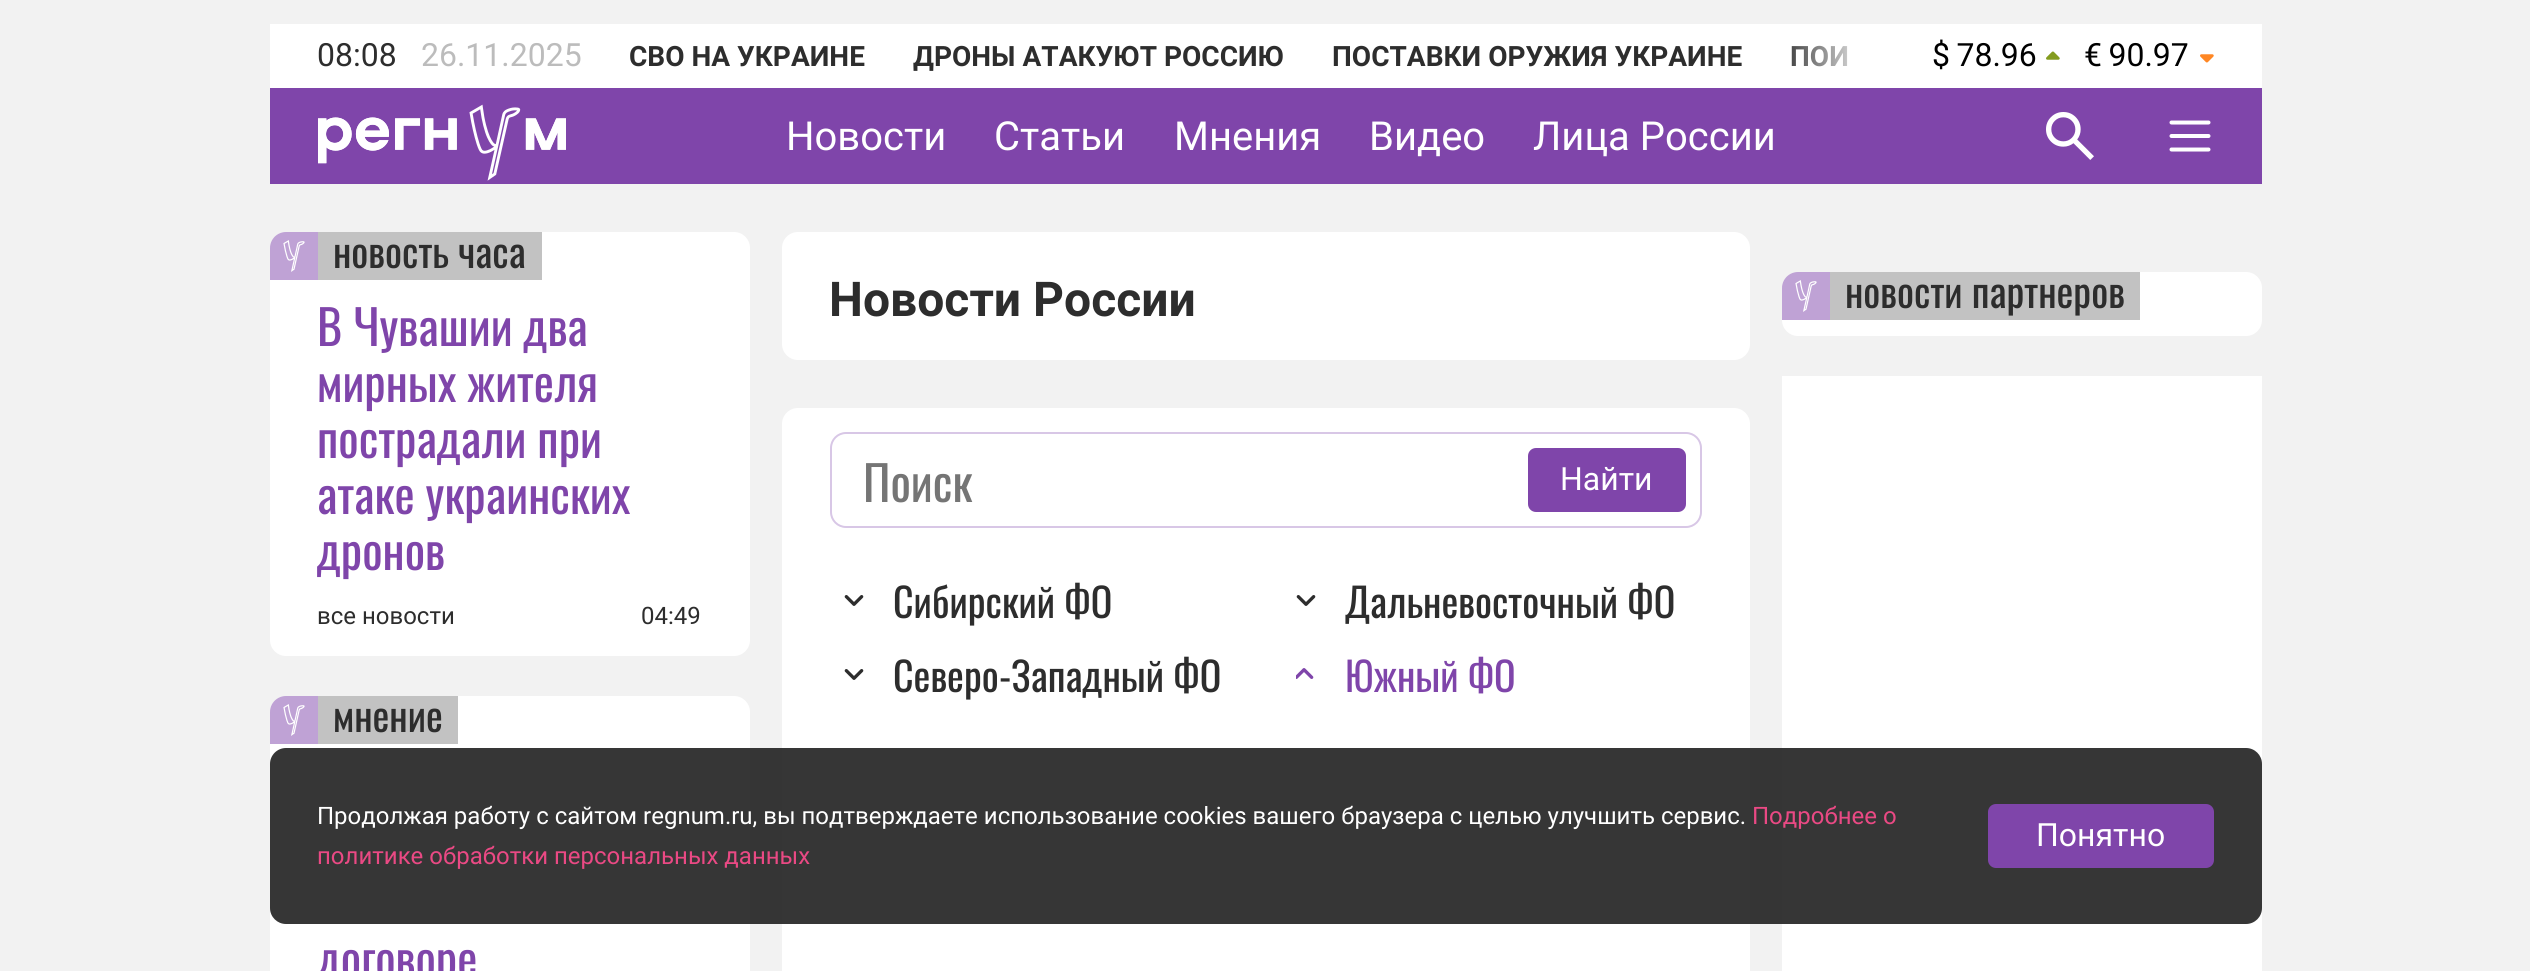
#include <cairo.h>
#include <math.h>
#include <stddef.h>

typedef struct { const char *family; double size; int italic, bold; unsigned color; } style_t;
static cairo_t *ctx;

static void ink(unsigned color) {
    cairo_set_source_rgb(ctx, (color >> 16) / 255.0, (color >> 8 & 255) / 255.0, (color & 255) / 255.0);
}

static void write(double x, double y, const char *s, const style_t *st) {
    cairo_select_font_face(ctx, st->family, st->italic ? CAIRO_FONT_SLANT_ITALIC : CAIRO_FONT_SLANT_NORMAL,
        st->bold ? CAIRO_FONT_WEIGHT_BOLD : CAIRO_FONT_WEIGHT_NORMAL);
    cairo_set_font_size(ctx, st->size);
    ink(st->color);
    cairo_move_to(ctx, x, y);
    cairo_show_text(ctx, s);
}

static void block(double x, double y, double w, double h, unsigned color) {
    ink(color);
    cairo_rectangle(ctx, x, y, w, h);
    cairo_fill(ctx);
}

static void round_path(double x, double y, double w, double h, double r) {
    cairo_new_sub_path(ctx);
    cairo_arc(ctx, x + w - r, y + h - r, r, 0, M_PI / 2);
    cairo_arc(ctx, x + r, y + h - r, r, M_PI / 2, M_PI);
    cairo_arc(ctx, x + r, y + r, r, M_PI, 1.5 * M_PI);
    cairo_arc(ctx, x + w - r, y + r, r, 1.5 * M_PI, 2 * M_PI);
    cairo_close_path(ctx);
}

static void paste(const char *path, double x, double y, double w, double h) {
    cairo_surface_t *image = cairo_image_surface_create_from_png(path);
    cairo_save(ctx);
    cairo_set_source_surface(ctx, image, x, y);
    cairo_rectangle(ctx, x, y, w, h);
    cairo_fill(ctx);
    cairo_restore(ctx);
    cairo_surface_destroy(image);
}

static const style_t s1 = {"Roboto", 32, 0, 0, 0x2d2d2d};
static const style_t s2 = {"Roboto", 32, 0, 0, 0xbcbcbc};
static const style_t s3 = {"Roboto", 28, 0, 1, 0x2d2d2d};
static const style_t s4 = {"Roboto", 32, 0, 0, 0x000000};
static const style_t s5 = {"Roboto", 40, 0, 0, 0xffffff};
static const style_t s6 = {"Oswald", 40, 0, 0, 0x2d2d2d};
static const style_t s7 = {"Oswald", 48, 0, 0, 0x7f45aa};
static const style_t s8 = {"Roboto", 24, 0, 0, 0x2d2d2d};
static const style_t s9 = {"Roboto", 48, 0, 1, 0x2d2d2d};
static const style_t s10 = {"Oswald", 48, 0, 0, 0x757575};
static const style_t s11 = {"Roboto", 32, 0, 0, 0xffffff};
static const style_t s12 = {"Oswald", 40, 0, 0, 0x7f45aa};
static const style_t s13 = {"Roboto", 24, 0, 0, 0xffffff};
static const style_t s14 = {"Roboto", 24, 0, 0, 0xea4984};

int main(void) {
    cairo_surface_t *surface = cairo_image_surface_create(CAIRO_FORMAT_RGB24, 2530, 971);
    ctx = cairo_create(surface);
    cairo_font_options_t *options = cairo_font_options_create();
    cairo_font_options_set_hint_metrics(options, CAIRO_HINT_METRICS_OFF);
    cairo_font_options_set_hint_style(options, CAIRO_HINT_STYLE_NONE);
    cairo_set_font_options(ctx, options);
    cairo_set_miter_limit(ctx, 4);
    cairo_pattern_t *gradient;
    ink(0xf2f2f2);
    cairo_paint(ctx);
    block(270, 24, 1992, 64, 0xffffff);
    write(317, 66, "08:08", &s1);
    write(421, 66, "26.11.2025", &s2);
    write(629, 66, "СВО НА УКРАИНЕ", &s3);
    write(913, 66, "ДРОНЫ АТАКУЮТ РОССИЮ", &s3);
    write(1332, 66, "ПОСТАВКИ ОРУЖИЯ УКРАИНЕ", &s3);
    write(1790, 66, "ПОИ", &s3);
    gradient = cairo_pattern_create_linear(1910, 56, 1778, 56);
    cairo_pattern_add_color_stop_rgba(gradient, 0.28, 1, 1, 1, 1);
    cairo_pattern_add_color_stop_rgba(gradient, 1, 1, 1, 1, 0);
    cairo_set_source(ctx, gradient);
    cairo_pattern_destroy(gradient);
    cairo_rectangle(ctx, 1792, 45, 56, 22);
    cairo_fill(ctx);
    write(1932, 66, "$ 78.96", &s4);
    paste("pic1.png", 2046, 51, 14, 9);
    write(2084, 66, "€ 90.97", &s4);
    paste("pic2.png", 2200, 54, 14, 9);
    block(270, 88, 1992, 96, 0x7f45aa);
    paste("pic3.png", 318, 104, 248, 77);
    write(786, 150, "Новости", &s5);
    write(994, 150, "Статьи", &s5);
    write(1174, 150, "Мнения", &s5);
    write(1369, 150, "Видео", &s5);
    write(1533, 150, "Лица России", &s5);
    paste("pic4.png", 2046, 112, 48, 48);
    cairo_new_path(ctx);
    cairo_move_to(ctx, 2171.5, 149.5);
    cairo_line_to(ctx, 2208.5, 149.5);
    cairo_move_to(ctx, 2171.5, 136);
    cairo_line_to(ctx, 2208.5, 136);
    cairo_move_to(ctx, 2171.5, 122.5);
    cairo_line_to(ctx, 2208.5, 122.5);
    cairo_set_line_width(ctx, 4);
    cairo_set_line_cap(ctx, CAIRO_LINE_CAP_ROUND);
    cairo_set_line_join(ctx, CAIRO_LINE_JOIN_ROUND);
    cairo_stroke(ctx);
    round_path(270, 232, 480, 424, 16);
    cairo_fill(ctx);
    paste("pic5.png", 270, 232, 48, 48);
    block(318, 232, 224, 48, 0xc2c2c2);
    write(333, 268, "новость часа", &s6);
    write(317, 346, "В Чувашии два", &s7);
    write(317, 402, "мирных жителя", &s7);
    write(317, 458, "пострадали при", &s7);
    write(317, 514, "атаке украинских", &s7);
    write(317, 570, "дронов", &s7);
    write(317, 624, "все новости", &s8);
    write(641, 624, "04:49", &s8);
    ink(0xffffff);
    round_path(270, 696, 480, 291, 16);
    cairo_fill(ctx);
    paste("pic5.png", 270, 696, 48, 48);
    block(318, 696, 140, 48, 0xc2c2c2);
    write(333, 732, "мнение", &s6);
    write(317, 978, "договоре", &s7);
    ink(0xffffff);
    round_path(782, 232, 968, 128, 16);
    cairo_fill(ctx);
    write(829, 316, "Новости России", &s9);
    ink(0xffffff);
    round_path(782, 408, 968, 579, 16);
    cairo_fill(ctx);
    round_path(831, 433, 870, 94, 15);
    ink(0xd8c7e6);
    cairo_set_line_width(ctx, 2);
    cairo_set_line_cap(ctx, CAIRO_LINE_CAP_BUTT);
    cairo_set_line_join(ctx, CAIRO_LINE_JOIN_MITER);
    cairo_stroke(ctx);
    write(863, 502, "Поиск", &s10);
    ink(0x7f45aa);
    round_path(1528, 448, 158, 64, 8);
    cairo_fill(ctx);
    write(1560, 490, "Найти", &s11);
    paste("pic6.png", 844, 595, 20, 11);
    write(893, 618, "Сибирский ФО", &s6);
    paste("pic6.png", 1296, 595, 20, 11);
    write(1345, 618, "Дальневосточный ФО", &s6);
    paste("pic6.png", 844, 669, 20, 11);
    write(893, 692, "Северо-Западный ФО", &s6);
    paste("pic7.png", 1296, 668, 18, 11);
    write(1345, 692, "Южный ФО", &s12);
    ink(0xffffff);
    round_path(1782, 272, 480, 64, 16);
    cairo_fill(ctx);
    paste("pic5.png", 1782, 272, 48, 48);
    block(1830, 272, 310, 48, 0xc2c2c2);
    write(1845, 308, "новости партнеров", &s6);
    block(1782, 376, 480, 595, 0xffffff);
    cairo_set_source_rgba(ctx, 0.176, 0.176, 0.176, 0.95);
    round_path(270, 748, 1992, 176, 16);
    cairo_fill(ctx);
    write(317, 824, "Продолжая работу с сайтом regnum.ru, вы подтверждаете использование cookies вашего браузера с целью улучшить сервис.", &s13);
    write(1752, 824, "Подробнее о", &s14);
    write(317, 864, "политике обработки персональных данных", &s14);
    ink(0x7f45aa);
    round_path(1988, 804, 226, 64, 8);
    cairo_fill(ctx);
    write(2036, 846, "Понятно", &s11);
    cairo_surface_write_to_png(surface, "screenshot.png");
    cairo_font_options_destroy(options);
    cairo_destroy(ctx);
    cairo_surface_destroy(surface);
    return 0;
}
